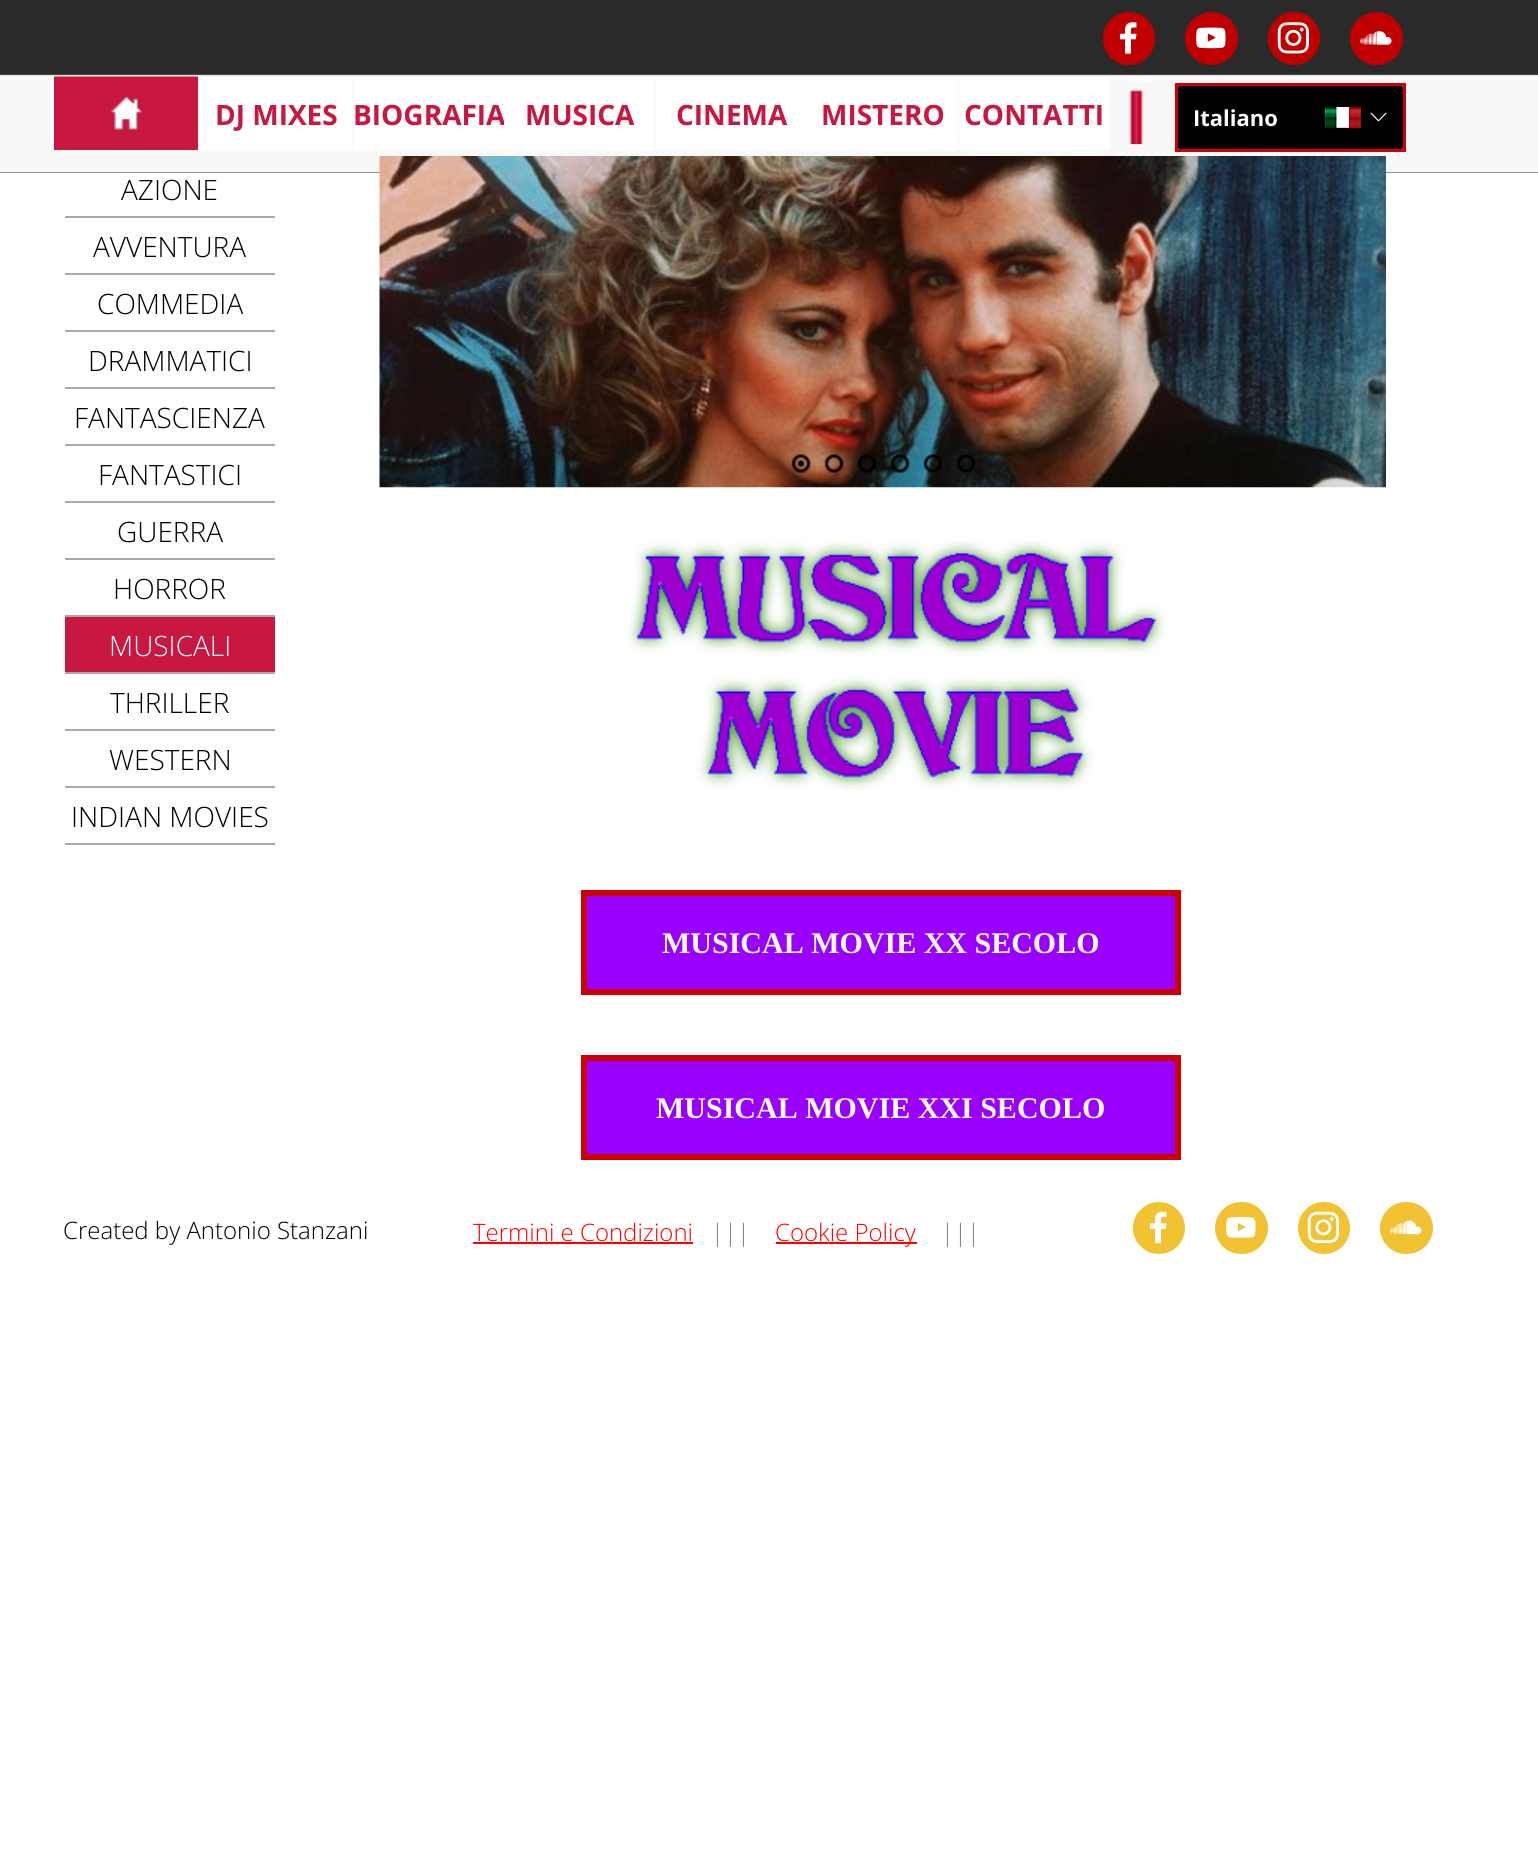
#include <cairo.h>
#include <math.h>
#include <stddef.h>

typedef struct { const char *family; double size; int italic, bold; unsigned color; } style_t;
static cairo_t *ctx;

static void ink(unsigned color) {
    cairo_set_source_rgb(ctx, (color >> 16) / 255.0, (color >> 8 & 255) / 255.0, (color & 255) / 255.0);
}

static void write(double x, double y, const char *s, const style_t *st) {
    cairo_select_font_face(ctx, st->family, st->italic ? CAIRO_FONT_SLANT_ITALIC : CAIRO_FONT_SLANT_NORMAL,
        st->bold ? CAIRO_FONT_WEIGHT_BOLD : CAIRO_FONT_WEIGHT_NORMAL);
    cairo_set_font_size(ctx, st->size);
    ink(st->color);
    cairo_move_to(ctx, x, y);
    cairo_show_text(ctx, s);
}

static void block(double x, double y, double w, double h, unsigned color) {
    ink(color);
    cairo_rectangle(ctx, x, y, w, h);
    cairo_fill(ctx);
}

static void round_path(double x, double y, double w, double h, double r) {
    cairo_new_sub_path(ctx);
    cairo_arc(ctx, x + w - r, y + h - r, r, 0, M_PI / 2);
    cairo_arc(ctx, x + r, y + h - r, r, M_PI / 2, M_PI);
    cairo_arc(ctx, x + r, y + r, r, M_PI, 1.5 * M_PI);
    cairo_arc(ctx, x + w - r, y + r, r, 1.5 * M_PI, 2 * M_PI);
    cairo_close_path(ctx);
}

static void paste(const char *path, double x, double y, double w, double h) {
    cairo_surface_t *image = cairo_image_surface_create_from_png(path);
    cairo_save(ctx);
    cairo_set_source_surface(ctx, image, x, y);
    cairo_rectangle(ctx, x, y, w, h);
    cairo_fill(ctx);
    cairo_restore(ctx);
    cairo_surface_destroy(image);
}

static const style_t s1 = {"Open Sans", 28, 0, 1, 0xc81741};
static const style_t s2 = {"Open Sans", 22, 0, 1, 0xffffff};
static const style_t s3 = {"Open Sans Light", 28, 0, 0, 0x000000};
static const style_t s4 = {"Open Sans Light", 28, 0, 0, 0xffffff};
static const style_t s5 = {"Liberation Serif", 30, 0, 1, 0xffffff};
static const style_t s6 = {"Open Sans Light", 24, 0, 0, 0x000000};
static const style_t s7 = {"Open Sans Light", 24, 0, 0, 0xff0000};
static const style_t s8 = {"Open Sans Light", 24, 0, 0, 0x808080};

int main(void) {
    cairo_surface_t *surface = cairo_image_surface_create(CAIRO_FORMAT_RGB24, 1538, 1858);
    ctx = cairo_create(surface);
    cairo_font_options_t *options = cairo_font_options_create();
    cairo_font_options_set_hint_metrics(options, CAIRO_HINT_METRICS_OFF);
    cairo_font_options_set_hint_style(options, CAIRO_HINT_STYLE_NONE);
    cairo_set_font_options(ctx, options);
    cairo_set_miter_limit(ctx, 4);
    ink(0xffffff);
    cairo_paint(ctx);
    block(0, 0, 1538, 173, 0x2a2a2a);
    paste("pic1.png", 0, 74, 1538, 99);
    ink(0xc00000);
    round_path(1103, 12, 52, 53, 26);
    cairo_fill(ctx);
    paste("pic2.png", 1119, 22, 18, 32);
    cairo_arc(ctx, 1211.5, 38.5, 26.5, 0, 2 * M_PI);
    cairo_fill(ctx);
    paste("pic3.png", 1196, 27, 30, 22);
    round_path(1268, 12, 52, 53, 26);
    cairo_fill(ctx);
    paste("pic4.png", 1277, 22, 32, 32);
    cairo_arc(ctx, 1376.5, 38.5, 26.5, 0, 2 * M_PI);
    cairo_fill(ctx);
    paste("pic5.png", 1360, 31, 32, 14);
    block(1130, 78, 20, 4, 0xffffff);
    paste("pic6.png", 50, 77, 151, 73);
    paste("pic7.png", 54, 76, 144, 74);
    paste("pic8.png", 201, 77, 151, 73);
    write(215, 125, "DJ MIXES", &s1);
    block(353, 77, 151, 73, 0xffffff);
    write(353, 125, "BIOGRAFIA", &s1);
    paste("pic9.png", 504, 77, 151, 73);
    write(525, 125, "MUSICA", &s1);
    paste("pic6.png", 656, 77, 151, 73);
    write(676, 125, "CINEMA", &s1);
    paste("pic8.png", 807, 77, 151, 73);
    write(821, 125, "MISTERO", &s1);
    paste("pic6.png", 959, 77, 151, 73);
    write(964, 125, "CONTATTI", &s1);
    paste("pic10.png", 1129, 89, 15, 55);
    cairo_rectangle(ctx, 1176.5, 84.5, 228, 66);
    ink(0xcc0000);
    cairo_set_line_width(ctx, 3);
    cairo_stroke(ctx);
    ink(0x000000);
    round_path(1178, 86, 225, 63, 1.5);
    cairo_fill(ctx);
    write(1193, 126, "Italiano", &s2);
    paste("pic11.png", 1325, 107, 36, 21);
    paste("pic12.png", 1370, 112, 17, 10);
    block(65, 216, 210, 2, 0xa9a9a9);
    write(121, 200, "AZIONE", &s3);
    block(65, 273, 210, 2, 0xa9a9a9);
    write(93, 257, "AVVENTURA", &s3);
    block(65, 330, 210, 2, 0xa9a9a9);
    write(97, 314, "COMMEDIA", &s3);
    block(65, 387, 210, 2, 0xa9a9a9);
    write(88, 371, "DRAMMATICI", &s3);
    block(65, 444, 210, 2, 0xa9a9a9);
    write(74, 428, "FANTASCIENZA", &s3);
    block(65, 501, 210, 2, 0xa9a9a9);
    write(98, 485, "FANTASTICI", &s3);
    block(65, 558, 210, 2, 0xa9a9a9);
    write(117, 542, "GUERRA", &s3);
    block(65, 615, 210, 2, 0xa9a9a9);
    write(113, 599, "HORROR", &s3);
    block(65, 617, 210, 55, 0xc81741);
    block(65, 672, 210, 2, 0xa9a9a9);
    write(109, 656, "MUSICALI", &s4);
    block(65, 729, 210, 2, 0xa9a9a9);
    write(110, 713, "THRILLER", &s3);
    block(65, 786, 210, 2, 0xa9a9a9);
    write(109, 770, "WESTERN", &s3);
    block(65, 843, 210, 2, 0xa9a9a9);
    write(71, 827, "INDIAN MOVIES", &s3);
    paste("pic13.png", 379, 156, 1007, 332);
    paste("pic14.png", 791, 454, 20, 19);
    paste("pic15.png", 824, 454, 20, 19);
    paste("pic16.png", 857, 454, 20, 19);
    paste("pic17.png", 890, 454, 20, 19);
    paste("pic18.png", 923, 454, 19, 19);
    paste("pic19.png", 957, 454, 18, 19);
    paste("pic20.png", 627, 540, 540, 251);
    ink(0x9900ff);
    cairo_rectangle(ctx, 584, 893, 594, 99);
    cairo_fill_preserve(ctx);
    ink(0xcc0000);
    cairo_set_line_width(ctx, 6);
    cairo_stroke(ctx);
    write(662, 953, "MUSICAL MOVIE XX SECOLO", &s5);
    ink(0x9900ff);
    cairo_rectangle(ctx, 584, 1058, 594, 99);
    cairo_fill_preserve(ctx);
    ink(0xcc0000);
    cairo_stroke(ctx);
    write(656, 1118, "MUSICAL MOVIE XXI SECOLO", &s5);
    write(63, 1239, "Created by Antonio Stanzani", &s6);
    write(473, 1241, "Termini e Condizioni", &s7);
    block(473, 1242, 220, 2, 0xff0000);
    write(711, 1241, "|||", &s8);
    block(776, 1242, 141, 2, 0xff0000);
    write(775, 1241, "Cookie Policy", &s7);
    write(941, 1241, "|||", &s8);
    ink(0xf1c232);
    cairo_new_path(ctx);
    cairo_arc(ctx, 1159, 1228, 26, 0, 2 * M_PI);
    cairo_fill(ctx);
    paste("pic21.png", 1149, 1211, 18, 33);
    round_path(1215, 1202, 53, 52, 26);
    cairo_fill(ctx);
    paste("pic22.png", 1226, 1217, 30, 21);
    cairo_arc(ctx, 1324, 1228, 26, 0, 2 * M_PI);
    cairo_fill(ctx);
    paste("pic23.png", 1307, 1211, 32, 32);
    round_path(1380, 1202, 53, 52, 26);
    cairo_fill(ctx);
    paste("pic24.png", 1390, 1220, 32, 15);
    cairo_surface_write_to_png(surface, "screenshot.png");
    cairo_font_options_destroy(options);
    cairo_destroy(ctx);
    cairo_surface_destroy(surface);
    return 0;
}
